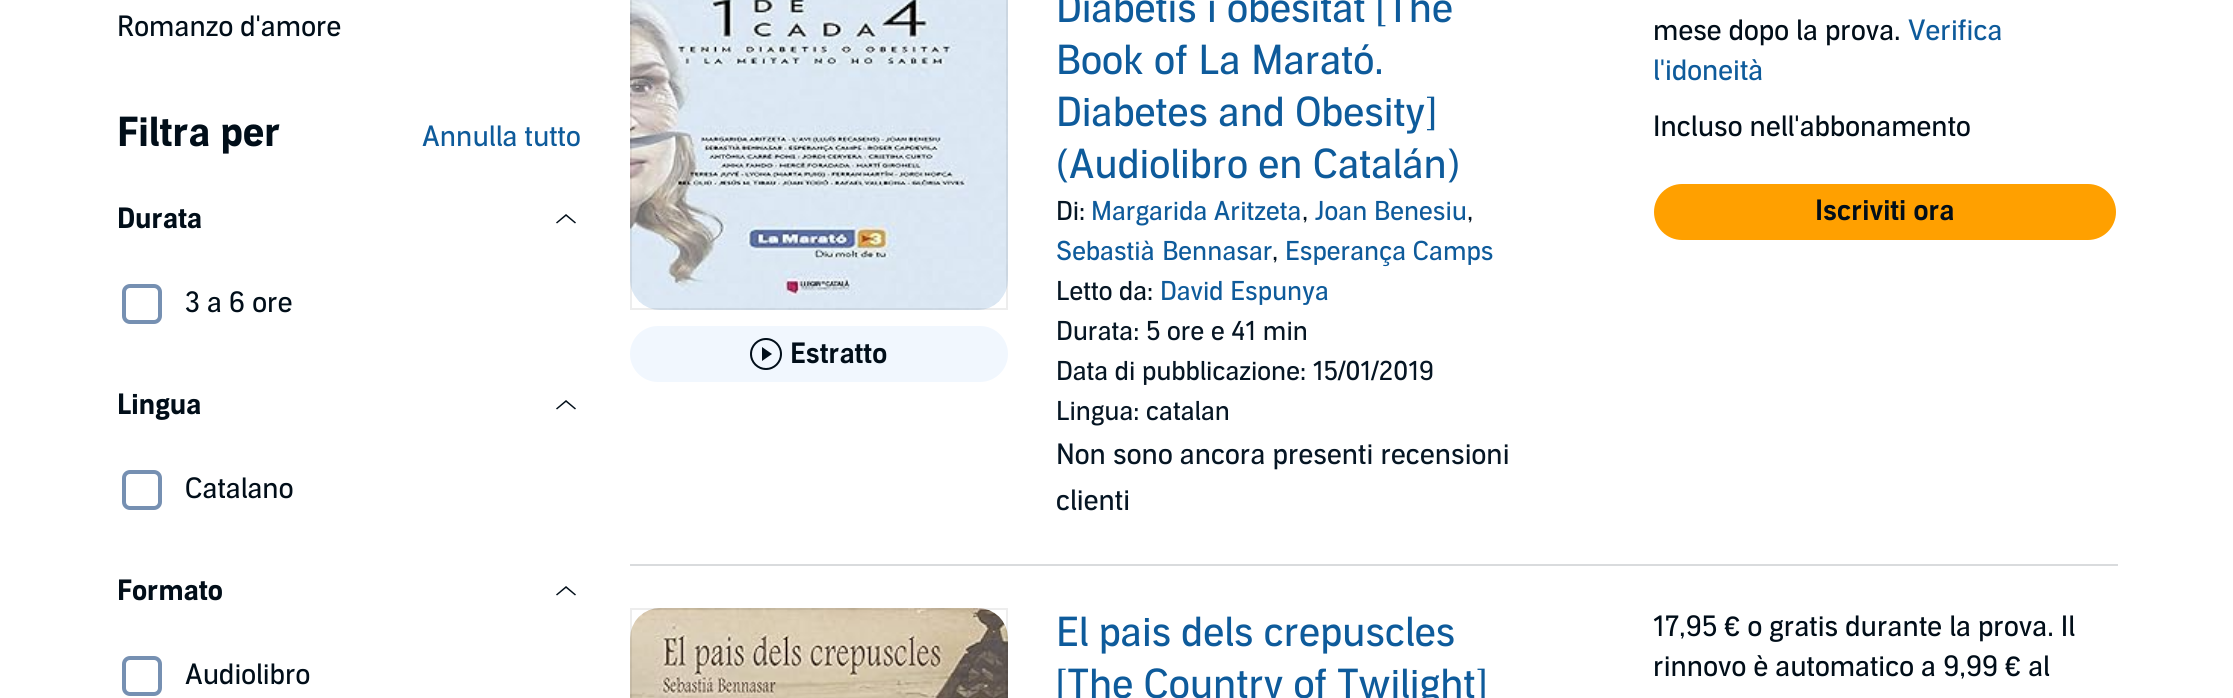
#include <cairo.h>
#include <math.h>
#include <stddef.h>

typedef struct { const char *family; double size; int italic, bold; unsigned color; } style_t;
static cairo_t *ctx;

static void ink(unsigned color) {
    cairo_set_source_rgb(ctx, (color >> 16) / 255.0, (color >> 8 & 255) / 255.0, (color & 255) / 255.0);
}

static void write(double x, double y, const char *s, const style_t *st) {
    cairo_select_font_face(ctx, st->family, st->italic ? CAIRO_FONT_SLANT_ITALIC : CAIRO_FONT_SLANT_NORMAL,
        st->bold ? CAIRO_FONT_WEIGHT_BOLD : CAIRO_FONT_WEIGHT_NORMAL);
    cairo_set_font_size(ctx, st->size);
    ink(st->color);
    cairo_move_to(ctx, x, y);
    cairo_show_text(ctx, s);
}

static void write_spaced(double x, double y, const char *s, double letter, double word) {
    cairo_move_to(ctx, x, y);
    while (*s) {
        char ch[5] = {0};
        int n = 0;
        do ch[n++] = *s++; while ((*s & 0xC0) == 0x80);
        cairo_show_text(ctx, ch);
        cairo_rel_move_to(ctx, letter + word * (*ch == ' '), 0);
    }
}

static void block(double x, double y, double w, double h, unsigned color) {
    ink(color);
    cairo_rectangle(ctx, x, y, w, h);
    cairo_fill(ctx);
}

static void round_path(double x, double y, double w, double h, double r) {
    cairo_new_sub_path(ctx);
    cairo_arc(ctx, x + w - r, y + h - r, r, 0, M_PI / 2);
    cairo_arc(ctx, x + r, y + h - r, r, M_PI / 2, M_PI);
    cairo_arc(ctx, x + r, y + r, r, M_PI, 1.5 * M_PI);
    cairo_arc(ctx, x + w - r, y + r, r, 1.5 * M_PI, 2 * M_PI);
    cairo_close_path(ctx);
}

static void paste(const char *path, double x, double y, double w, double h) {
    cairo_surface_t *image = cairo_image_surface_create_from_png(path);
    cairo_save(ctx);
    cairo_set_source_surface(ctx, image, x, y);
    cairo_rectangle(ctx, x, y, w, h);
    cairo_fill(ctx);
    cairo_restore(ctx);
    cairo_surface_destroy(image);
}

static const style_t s1 = {"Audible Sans", 28, 0, 0, 0x010e19};
static const style_t s2 = {"Audible Sans", 40, 0, 1, 0x010e19};
static const style_t s3 = {"Audible Sans", 28, 0, 0, 0x0e5b9b};
static const style_t s4 = {"Audible Sans", 28, 0, 1, 0x010e19};
static const style_t s5 = {"Audible Sans SemiBold", 28, 0, 0, 0x010e19};
static const style_t s6 = {"Audible Sans", 40, 0, 0, 0x0e5b9b};
static const style_t s7 = {"Audible Sans", 26, 0, 0, 0x061624};
static const style_t s8 = {"Audible Sans", 26, 0, 0, 0x0e5b9b};
static const style_t s9 = {"Audible Sans", 28, 0, 0, 0x061624};

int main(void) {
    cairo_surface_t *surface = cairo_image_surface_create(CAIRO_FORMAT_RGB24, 2233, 698);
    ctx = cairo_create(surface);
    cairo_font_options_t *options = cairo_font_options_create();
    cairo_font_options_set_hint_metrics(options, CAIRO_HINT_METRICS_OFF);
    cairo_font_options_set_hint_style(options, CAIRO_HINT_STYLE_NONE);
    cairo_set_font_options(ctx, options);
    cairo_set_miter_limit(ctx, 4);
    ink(0xffffff);
    cairo_paint(ctx);
    write(117, 36, "Romanzo d'amore", &s1);
    write(117, 146, "Filtra per", &s2);
    write(422, 146, "Annulla tutto", &s3);
    write(117, 228, "Durata", &s4);
    cairo_new_path(ctx);
    cairo_move_to(ctx, 566, 216);
    cairo_line_to(ctx, 557, 223.5);
    cairo_line_to(ctx, 556, 222.5);
    cairo_line_to(ctx, 566, 214);
    cairo_line_to(ctx, 576, 222.5);
    cairo_line_to(ctx, 575, 223.5);
    cairo_close_path(ctx);
    cairo_fill(ctx);
    round_path(124, 286, 36, 36, 6);
    ink(0x7690b2);
    cairo_set_line_width(ctx, 4);
    cairo_stroke(ctx);
    write(185, 312, "3 a 6 ore", &s1);
    write(117, 414, "Lingua", &s4);
    cairo_new_path(ctx);
    cairo_move_to(ctx, 566, 402);
    cairo_line_to(ctx, 557, 409.5);
    cairo_line_to(ctx, 556, 408.5);
    cairo_line_to(ctx, 566, 400);
    cairo_line_to(ctx, 576, 408.5);
    cairo_line_to(ctx, 575, 409.5);
    cairo_close_path(ctx);
    cairo_fill(ctx);
    round_path(124, 472, 36, 36, 6);
    ink(0x7690b2);
    cairo_stroke(ctx);
    write(185, 498, "Catalano", &s1);
    write(117, 600, "Formato", &s4);
    cairo_new_path(ctx);
    cairo_move_to(ctx, 566, 588);
    cairo_line_to(ctx, 557, 595.5);
    cairo_line_to(ctx, 556, 594.5);
    cairo_line_to(ctx, 566, 586);
    cairo_line_to(ctx, 576, 594.5);
    cairo_line_to(ctx, 575, 595.5);
    cairo_close_path(ctx);
    cairo_fill(ctx);
    round_path(124, 658, 36, 36, 6);
    ink(0x7690b2);
    cairo_stroke(ctx);
    write(185, 684, "Audiolibro", &s1);
    paste("pic1.png", 630, 0, 378, 310);
    cairo_rectangle(ctx, 631, -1, 376, 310);
    cairo_set_source_rgba(ctx, 0.129, 0.137, 0.145, 0.08);
    cairo_set_line_width(ctx, 2);
    cairo_stroke(ctx);
    ink(0xf1f7fe);
    round_path(630, 326, 378, 56, 28);
    cairo_fill(ctx);
    paste("pic2.png", 750, 338, 32, 32);
    write(790, 363, "Estratto", &s5);
    write(1056, 22, "Diabetis i obesitat [The", &s6);
    write_spaced(1056, 74, "Book of La Marató.", 0, 0.5);
    write(1056, 126, "Diabetes and Obesity]", &s6);
    write(1056, 178, "(Audiolibro en Catalán)", &s6);
    write(1056, 220, "Di:", &s7);
    write(1091, 220, "Margarida Aritzeta", &s8);
    write(1302, 220, ",", &s7);
    write(1315, 220, "Joan Benesiu", &s8);
    write(1467, 220, ",", &s7);
    ink(0x0e5b9b);
    write_spaced(1056, 260, "Sebastià Bennasar", 0, 1);
    write(1272, 260, ",", &s7);
    write(1285, 260, "Esperança Camps", &s8);
    write(1056, 300, "Letto da:", &s7);
    write(1160, 300, "David Espunya", &s8);
    write(1056, 340, "Durata: 5 ore e 41 min", &s7);
    write(1056, 380, "Data di pubblicazione: 15/01/2019", &s7);
    write(1056, 420, "Lingua: catalan", &s7);
    write(1056, 464, "Non sono ancora presenti recensioni", &s9);
    write(1056, 510, "clienti", &s9);
    write(1653, 40, "mese dopo la prova.", &s1);
    write(1908, 40, "Verifica", &s3);
    write(1653, 80, "l'idoneità", &s3);
    write(1653, 136, "Incluso nell'abbonamento", &s1);
    ink(0xffa000);
    round_path(1654, 184, 462, 56, 28);
    cairo_fill(ctx);
    write(1815, 220, "Iscriviti ora", &s5);
    block(630, 564, 1488, 2, 0xd9dbdd);
    paste("pic3.png", 630, 608, 378, 90);
    cairo_rectangle(ctx, 631, 609, 376, 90);
    cairo_set_source_rgba(ctx, 0.129, 0.137, 0.145, 0.08);
    cairo_stroke(ctx);
    write(1056, 646, "El pais dels crepuscles", &s6);
    write(1056, 698, "[The Country of Twilight]", &s6);
    write(1653, 636, "17,95 € o gratis durante la prova. Il", &s1);
    write(1653, 676, "rinnovo è automatico a 9,99 € al", &s1);
    cairo_surface_write_to_png(surface, "screenshot.png");
    cairo_font_options_destroy(options);
    cairo_destroy(ctx);
    cairo_surface_destroy(surface);
    return 0;
}
